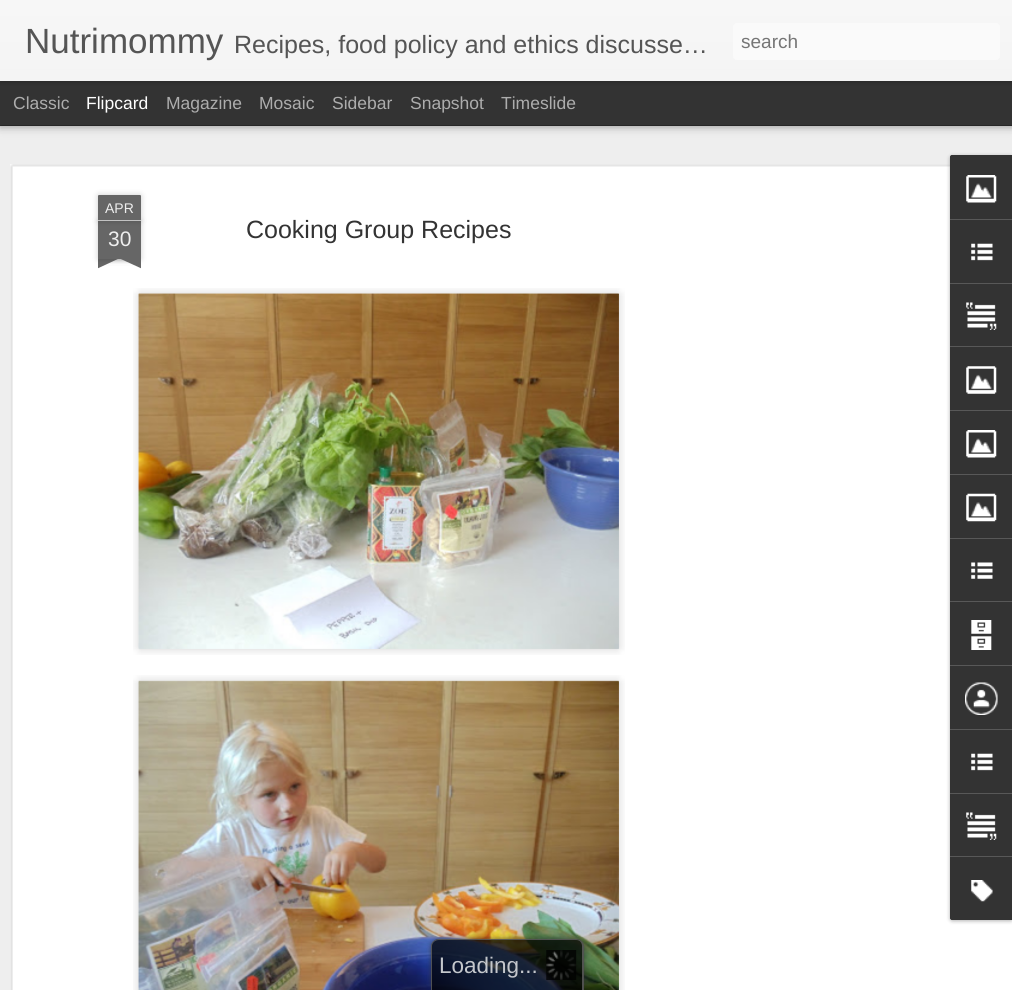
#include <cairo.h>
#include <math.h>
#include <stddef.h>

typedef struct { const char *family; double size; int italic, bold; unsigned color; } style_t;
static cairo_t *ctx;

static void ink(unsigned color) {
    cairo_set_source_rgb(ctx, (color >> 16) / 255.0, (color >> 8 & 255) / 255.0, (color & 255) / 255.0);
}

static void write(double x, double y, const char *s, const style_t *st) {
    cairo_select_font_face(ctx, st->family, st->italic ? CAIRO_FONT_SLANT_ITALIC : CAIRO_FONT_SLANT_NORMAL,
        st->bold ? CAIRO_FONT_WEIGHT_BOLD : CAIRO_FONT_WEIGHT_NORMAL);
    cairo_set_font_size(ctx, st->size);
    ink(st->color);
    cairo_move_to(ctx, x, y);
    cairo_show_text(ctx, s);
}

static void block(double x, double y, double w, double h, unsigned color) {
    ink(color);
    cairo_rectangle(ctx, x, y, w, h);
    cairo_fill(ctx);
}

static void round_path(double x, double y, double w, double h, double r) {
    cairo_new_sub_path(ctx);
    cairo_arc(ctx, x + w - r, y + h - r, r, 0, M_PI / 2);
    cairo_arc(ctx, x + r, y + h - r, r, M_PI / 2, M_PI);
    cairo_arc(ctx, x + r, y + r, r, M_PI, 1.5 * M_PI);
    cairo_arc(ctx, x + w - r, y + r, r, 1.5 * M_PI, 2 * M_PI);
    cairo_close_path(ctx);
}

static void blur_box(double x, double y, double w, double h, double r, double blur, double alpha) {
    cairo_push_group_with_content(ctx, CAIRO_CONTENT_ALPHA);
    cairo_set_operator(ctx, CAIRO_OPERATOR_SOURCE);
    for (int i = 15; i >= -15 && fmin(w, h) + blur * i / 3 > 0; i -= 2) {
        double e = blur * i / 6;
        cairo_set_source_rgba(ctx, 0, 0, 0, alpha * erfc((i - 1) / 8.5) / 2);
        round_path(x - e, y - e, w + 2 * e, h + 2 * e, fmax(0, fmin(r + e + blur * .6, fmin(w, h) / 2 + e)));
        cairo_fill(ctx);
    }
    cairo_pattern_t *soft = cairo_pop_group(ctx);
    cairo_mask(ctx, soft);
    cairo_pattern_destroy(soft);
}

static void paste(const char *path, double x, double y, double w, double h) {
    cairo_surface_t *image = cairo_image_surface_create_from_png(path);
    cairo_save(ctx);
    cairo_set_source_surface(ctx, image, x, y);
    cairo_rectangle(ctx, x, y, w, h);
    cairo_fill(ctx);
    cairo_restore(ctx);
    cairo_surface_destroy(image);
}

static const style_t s1 = {"Liberation Sans", 35, 0, 0, 0x555555};
static const style_t s2 = {"Liberation Sans", 25, 0, 0, 0x555555};
static const style_t s3 = {"Liberation Sans", 19, 0, 0, 0x757575};
static const style_t s4 = {"Liberation Sans", 17.5, 0, 0, 0xadadad};
static const style_t s5 = {"Liberation Sans", 17.5, 0, 0, 0xffffff};
static const style_t s6 = {"Liberation Sans", 14, 0, 0, 0xeeeeee};
static const style_t s7 = {"Liberation Sans", 21, 0, 0, 0xeeeeee};
static const style_t s8 = {"Liberation Sans", 25, 0, 0, 0x333333};
static const style_t s9 = {"Liberation Sans", 22.5, 0, 0, 0xc4c7cc};

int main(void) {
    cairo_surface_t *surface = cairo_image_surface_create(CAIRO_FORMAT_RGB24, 1012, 990);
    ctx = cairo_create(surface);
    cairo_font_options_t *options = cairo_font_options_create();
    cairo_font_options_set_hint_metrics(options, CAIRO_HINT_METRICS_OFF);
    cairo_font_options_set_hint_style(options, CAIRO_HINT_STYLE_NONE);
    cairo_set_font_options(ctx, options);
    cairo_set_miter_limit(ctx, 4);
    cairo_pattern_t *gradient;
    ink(0x333333);
    cairo_paint(ctx);
    block(0, 126, 1012, 864, 0xeeeeee);
    ink(0x000000);
    blur_box(0, 81, 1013, 44, 0, 5, 0.5);
    block(0, 81, 1012, 44, 0x333333);
    ink(0x000000);
    blur_box(0, 0, 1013, 81, 0, 3, 0.3);
    gradient = cairo_pattern_create_linear(0, 0, 0, 81);
    cairo_pattern_add_color_stop_rgba(gradient, 0, 0.969, 0.969, 0.969, 1);
    cairo_pattern_add_color_stop_rgba(gradient, 1, 0.957, 0.957, 0.957, 1);
    cairo_set_source(ctx, gradient);
    cairo_pattern_destroy(gradient);
    cairo_rectangle(ctx, 0, 0, 1012, 81);
    cairo_fill(ctx);
    write(25, 53, "Nutrimommy", &s1);
    write(234, 53, "Recipes, food policy and ethics discusse…", &s2);
    ink(0xfafafa);
    round_path(733, 23, 267, 37, 4);
    cairo_fill(ctx);
    write(741, 48, "search", &s3);
    write(13, 109, "Classic", &s4);
    write(86, 109, "Flipcard", &s5);
    write(166, 109, "Magazine", &s4);
    write(259, 109, "Mosaic", &s4);
    write(332, 109, "Sidebar", &s4);
    write(410, 109, "Snapshot", &s4);
    write(501, 109, "Timeslide", &s4);
    block(10, 164, 1002, 826, 0xffffff);
    paste("pic1.png", 10, 164, 940, 826);
    ink(0x000000);
    blur_box(98, 221, 43, 38, 0, 3, 0.2);
    block(98, 221, 43, 38, 0x666666);
    ink(0x000000);
    blur_box(98, 195, 43, 26, 1, 3, 0.2);
    ink(0x666666);
    cairo_new_path(ctx);
    cairo_move_to(ctx, 99, 195);
    cairo_line_to(ctx, 140, 195);
    cairo_curve_to(ctx, 140.5, 195, 141, 195.5, 141, 196);
    cairo_line_to(ctx, 141, 221);
    cairo_line_to(ctx, 98, 221);
    cairo_line_to(ctx, 98, 196);
    cairo_curve_to(ctx, 98, 195.5, 98.5, 195, 99, 195);
    cairo_close_path(ctx);
    cairo_fill(ctx);
    block(98, 220, 43, 1, 0xc2c2c2);
    write(105, 213, "APR", &s6);
    write(108, 246, "30", &s7);
    cairo_save(ctx);
    cairo_rectangle(ctx, 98, 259, 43, 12);
    cairo_clip(ctx);
    ink(0x000000);
    blur_box(86, 246, 63, 13, 0, 3, 0.2);
    cairo_restore(ctx);
    cairo_save(ctx);
    cairo_rectangle(ctx, 98, 259, 43, 12);
    cairo_clip(ctx);
    ink(0x666666);
    cairo_new_path(ctx);
    cairo_move_to(ctx, 87, 260);
    cairo_line_to(ctx, 143, 234);
    cairo_line_to(ctx, 148, 245);
    cairo_line_to(ctx, 92, 271);
    cairo_close_path(ctx);
    cairo_fill(ctx);
    cairo_restore(ctx);
    cairo_save(ctx);
    cairo_rectangle(ctx, 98, 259, 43, 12);
    cairo_clip(ctx);
    ink(0x000000);
    blur_box(90, 246, 63, 13, 0, 3, 0.2);
    cairo_restore(ctx);
    cairo_save(ctx);
    cairo_rectangle(ctx, 98, 259, 43, 12);
    cairo_clip(ctx);
    ink(0x666666);
    cairo_new_path(ctx);
    cairo_move_to(ctx, 96, 234);
    cairo_line_to(ctx, 152, 260);
    cairo_line_to(ctx, 147, 271);
    cairo_line_to(ctx, 90, 245);
    cairo_close_path(ctx);
    cairo_fill(ctx);
    cairo_restore(ctx);
    write(246, 238, "Cooking Group Recipes", &s8);
    paste("pic2.png", 133, 288, 492, 367);
    paste("pic3.png", 138, 293, 481, 356);
    paste("pic4.png", 133, 675, 492, 315);
    paste("pic5.png", 138, 680, 481, 310);
    ink(0x000000);
    blur_box(950, 156, 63, 765, 2.5, 2, 0.3);
    ink(0x333333);
    cairo_new_path(ctx);
    cairo_move_to(ctx, 952.5, 155);
    cairo_line_to(ctx, 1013, 155);
    cairo_line_to(ctx, 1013, 920);
    cairo_line_to(ctx, 952.5, 920);
    cairo_curve_to(ctx, 951, 920, 950, 919, 950, 917.5);
    cairo_line_to(ctx, 950, 157.5);
    cairo_curve_to(ctx, 950, 156, 951, 155, 952.5, 155);
    cairo_close_path(ctx);
    cairo_fill(ctx);
    cairo_new_path(ctx);
    cairo_move_to(ctx, 952.5, 155);
    cairo_line_to(ctx, 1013, 155);
    cairo_line_to(ctx, 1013, 219);
    cairo_line_to(ctx, 950, 219);
    cairo_line_to(ctx, 950, 157.5);
    cairo_curve_to(ctx, 950, 156, 951, 155, 952.5, 155);
    cairo_close_path(ctx);
    cairo_fill(ctx);
    paste("pic6.png", 966, 175, 31, 28);
    block(950, 219, 62, 1, 0x585858);
    paste("pic7.png", 971, 243, 22, 18);
    block(950, 283, 62, 1, 0x585858);
    paste("pic8.png", 966, 302, 31, 28);
    block(950, 346, 62, 1, 0x585858);
    paste("pic9.png", 966, 366, 31, 28);
    block(950, 410, 62, 1, 0x585858);
    paste("pic6.png", 966, 430, 31, 28);
    block(950, 474, 62, 1, 0x585858);
    paste("pic10.png", 966, 493, 31, 29);
    block(950, 538, 62, 1, 0x585858);
    paste("pic11.png", 971, 562, 22, 17);
    block(950, 601, 62, 1, 0x585858);
    paste("pic12.png", 971, 620, 21, 30);
    block(950, 665, 62, 1, 0x585858);
    paste("pic13.png", 965, 682, 33, 33);
    block(950, 729, 62, 1, 0x585858);
    paste("pic7.png", 971, 753, 22, 18);
    block(950, 793, 62, 1, 0x585858);
    paste("pic8.png", 966, 812, 31, 28);
    ink(0x333333);
    cairo_new_path(ctx);
    cairo_move_to(ctx, 950, 856);
    cairo_line_to(ctx, 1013, 856);
    cairo_line_to(ctx, 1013, 920);
    cairo_line_to(ctx, 952.5, 920);
    cairo_curve_to(ctx, 951, 920, 950, 919, 950, 917.5);
    cairo_close_path(ctx);
    cairo_fill(ctx);
    block(950, 856, 62, 1, 0x585858);
    paste("pic14.png", 971, 880, 22, 22);
    cairo_save(ctx);
    cairo_set_fill_rule(ctx, CAIRO_FILL_RULE_EVEN_ODD);
    cairo_new_path(ctx);
    cairo_move_to(ctx, 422, 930);
    cairo_line_to(ctx, 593, 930);
    cairo_line_to(ctx, 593, 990);
    cairo_line_to(ctx, 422, 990);
    cairo_close_path(ctx);
    cairo_move_to(ctx, 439, 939);
    cairo_line_to(ctx, 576, 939);
    cairo_curve_to(ctx, 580.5, 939, 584, 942.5, 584, 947);
    cairo_line_to(ctx, 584, 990);
    cairo_line_to(ctx, 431, 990);
    cairo_line_to(ctx, 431, 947);
    cairo_curve_to(ctx, 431, 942.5, 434.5, 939, 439, 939);
    cairo_close_path(ctx);
    cairo_clip(ctx);
    ink(0x333333);
    blur_box(431, 939, 153, 51, 8, 2.5, 0.75);
    cairo_restore(ctx);
    cairo_set_source_rgba(ctx, 0, 0, 0, 0.75);
    cairo_new_path(ctx);
    cairo_move_to(ctx, 439, 939);
    cairo_line_to(ctx, 576, 939);
    cairo_curve_to(ctx, 580.5, 939, 584, 942.5, 584, 947);
    cairo_line_to(ctx, 584, 990);
    cairo_line_to(ctx, 431, 990);
    cairo_line_to(ctx, 431, 947);
    cairo_curve_to(ctx, 431, 942.5, 434.5, 939, 439, 939);
    cairo_close_path(ctx);
    cairo_fill(ctx);
    cairo_set_source_rgba(ctx, 0.4, 0.4, 0.4, 0.75);
    cairo_set_fill_rule(ctx, CAIRO_FILL_RULE_EVEN_ODD);
    cairo_new_path(ctx);
    cairo_move_to(ctx, 439, 939);
    cairo_line_to(ctx, 576, 939);
    cairo_curve_to(ctx, 580, 939, 584, 942, 584, 946);
    cairo_line_to(ctx, 584, 990);
    cairo_line_to(ctx, 431, 990);
    cairo_line_to(ctx, 431, 946);
    cairo_curve_to(ctx, 431, 942, 435, 939, 439, 939);
    cairo_close_path(ctx);
    cairo_move_to(ctx, 439, 940);
    cairo_line_to(ctx, 576, 940);
    cairo_curve_to(ctx, 580, 940, 582, 943, 582, 946);
    cairo_line_to(ctx, 582, 990);
    cairo_line_to(ctx, 432, 990);
    cairo_line_to(ctx, 432, 946);
    cairo_curve_to(ctx, 432, 943, 435, 940, 439, 940);
    cairo_close_path(ctx);
    cairo_fill(ctx);
    paste("pic15.png", 546, 950, 31, 30);
    write(439, 973, "Loading", &s9);
    write(519, 973, "...", &s9);
    cairo_surface_write_to_png(surface, "screenshot.png");
    cairo_font_options_destroy(options);
    cairo_destroy(ctx);
    cairo_surface_destroy(surface);
    return 0;
}
